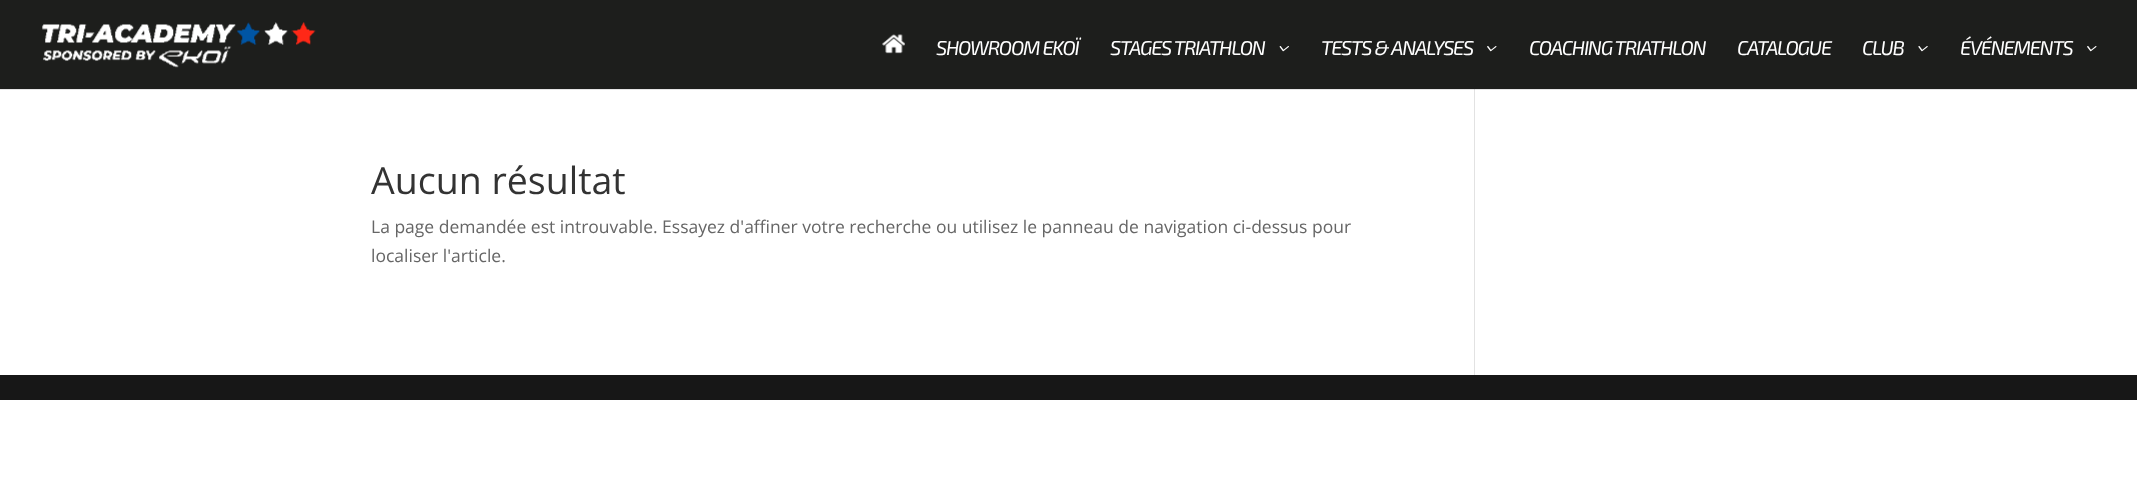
<!DOCTYPE html>
<meta charset="utf-8">
<style>body { margin: 0 } canvas { display: block }</style>
<canvas id="canvas" width="2137" height="480"></canvas>
<script type="module">
  const canvas = document.getElementById("canvas");
  const g = canvas.getContext("2d");
  g.miterLimit = 4;
  g.fontKerning = "normal";
  function drawText(s, x, y, [font, color]) {
    g.font = font;
    g.fillStyle = color;
    g.fillText(s, x, y);
  }
  function fillBox(x, y, w, h, color) {
    g.fillStyle = color;
    g.fillRect(x, y, w, h);
  }
  async function drawPicture(src, x, y, w, h) {
    const img = new Image();
    img.src = src;
    await img.decode();
    g.drawImage(img, x, y, w, h);
  }

  const s1 = ["italic 20px 'Exo 2'", "#FFFFFF"];
  const s2 = ["37.5px Open Sans", "#333333"];
  const s3 = ["17.5px Open Sans", "#666666"];

  fillBox(0, 0, 2137, 480, "#FFFFFF");
  fillBox(1474, 89, 1, 286, "#E2E2E2");
  g.fillStyle = "rgba(0, 0, 0, 0.1)";
  g.beginPath();
  g.moveTo(0, 89);
  g.lineTo(0, 90);
  g.lineTo(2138, 90);
  g.lineTo(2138, 1);
  g.lineTo(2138, 89);
  g.closePath();
  g.fill();
  fillBox(0, 0, 2137, 89, "#1D1E1C");
  await drawPicture("pic1.png", 42, 22, 274, 46);
  await drawPicture("pic2.png", 882, 34, 23, 20);
  g.letterSpacing = "-1.25px";
  drawText("SHOWROOM EKOÏ", 936, 55, s1);
  drawText("STAGES TRIATHLON", 1110, 55, s1);
  await drawPicture("pic3.png", 1279, 46, 10, 6);
  drawText("TESTS & ANALYSES", 1321, 55, s1);
  await drawPicture("pic4.png", 1487, 46, 10, 6);
  drawText("COACHING TRIATHLON", 1529, 55, s1);
  drawText("CATALOGUE", 1737, 55, s1);
  drawText("CLUB", 1862, 55, s1);
  await drawPicture("pic5.png", 1918, 46, 10, 6);
  drawText("ÉVÉNEMENTS", 1960, 55, s1);
  await drawPicture("pic4.png", 2087, 46, 10, 6);
  g.letterSpacing = "0px";
  drawText("Aucun résultat", 371, 194, s2);
  drawText("La page demandée est introuvable. Essayez d'affiner votre recherche ou utilisez le panneau de navigation ci-dessus pour", 371, 233, s3);
  drawText("localiser l'article.", 371, 262, s3);
  fillBox(0, 375, 2137, 25, "#171717");
</script>
